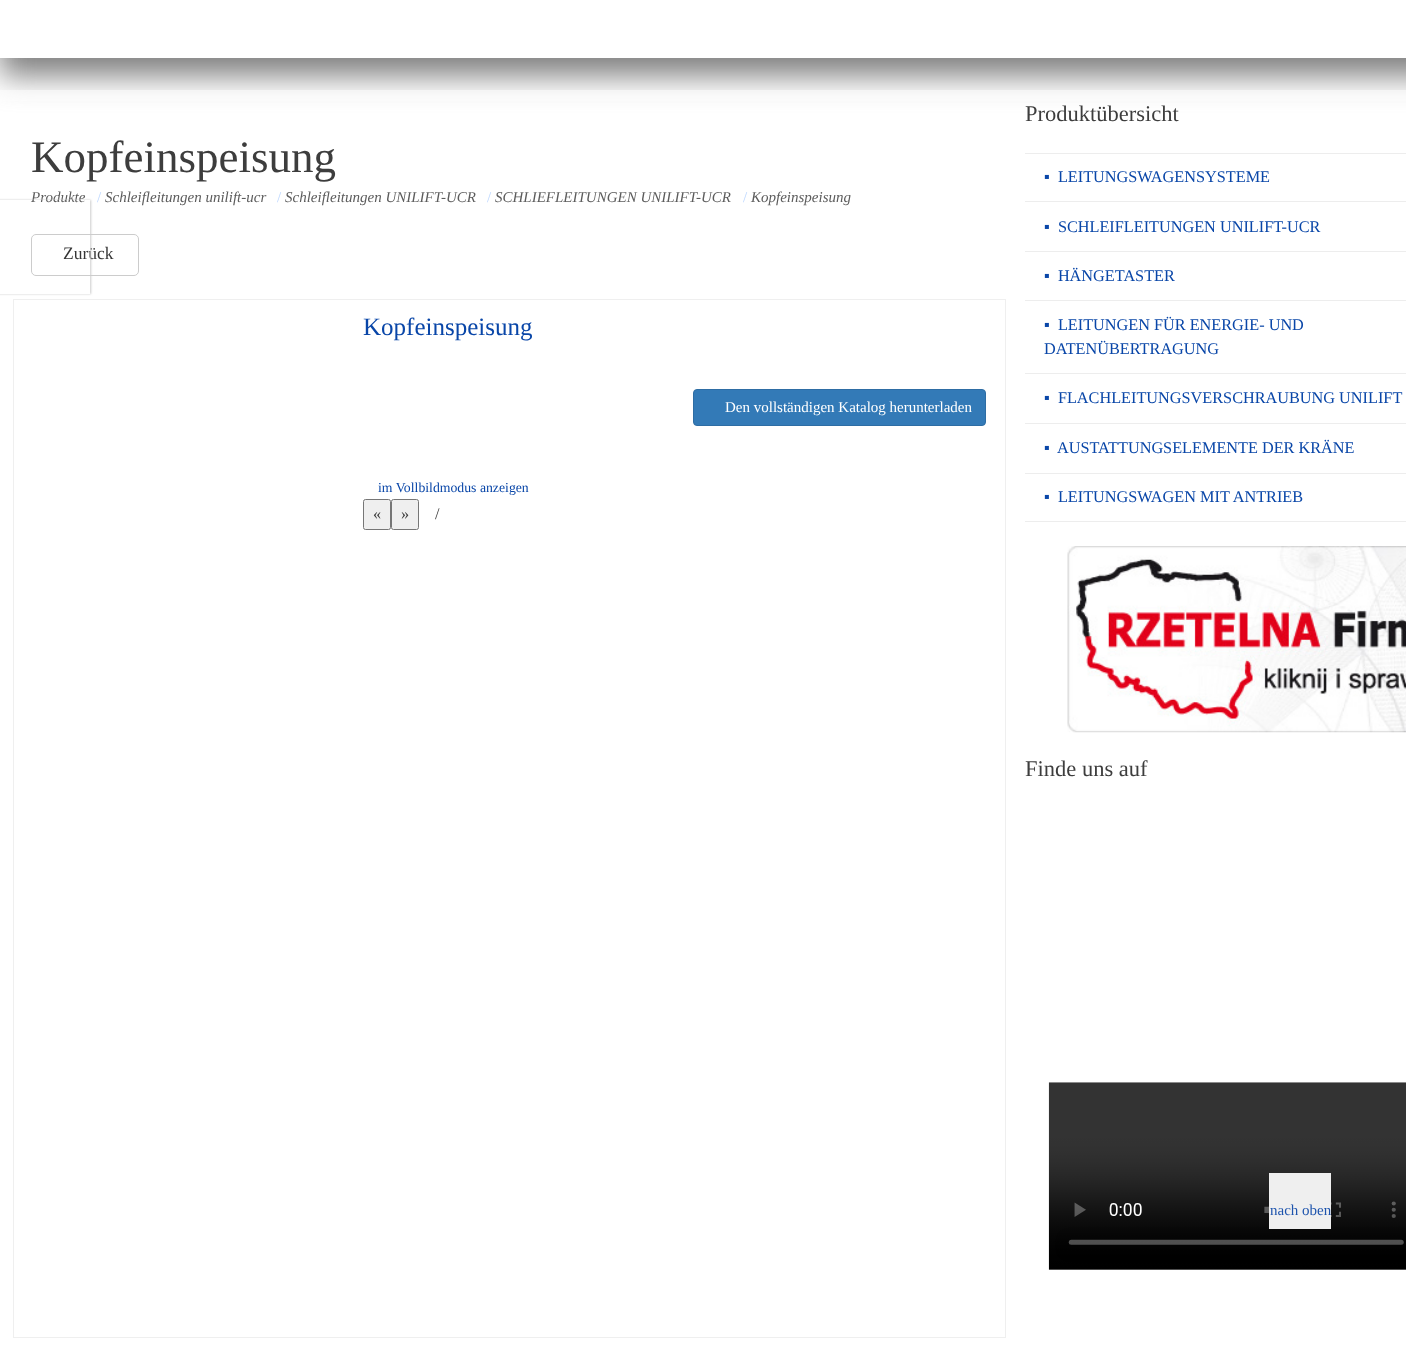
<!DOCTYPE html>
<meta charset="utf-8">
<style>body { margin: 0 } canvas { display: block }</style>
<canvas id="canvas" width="1406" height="1353"></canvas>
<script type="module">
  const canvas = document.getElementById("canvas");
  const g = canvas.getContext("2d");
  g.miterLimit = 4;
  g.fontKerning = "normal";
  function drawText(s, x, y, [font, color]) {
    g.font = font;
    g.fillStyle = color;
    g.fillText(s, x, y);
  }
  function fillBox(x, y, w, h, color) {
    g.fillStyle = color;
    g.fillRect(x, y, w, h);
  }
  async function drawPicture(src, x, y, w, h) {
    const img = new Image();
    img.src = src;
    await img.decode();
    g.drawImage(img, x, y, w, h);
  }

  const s1 = ["45px Liberation Serif", "#3D3D3D"];
  const s2 = ["italic 15px Liberation Serif", "#5C5C5C"];
  const s3 = ["15px Liberation Serif", "#BDD7FF"];
  const s4 = ["17.5px Liberation Serif", "#353535"];
  const s5 = ["25px Liberation Serif", "#0946A8"];
  const s6 = ["15px Liberation Serif", "#FFFFFF"];
  const s7 = ["13.75px Liberation Serif", "#0946A8"];
  const s8 = ["16.25px Liberation Serif", "#3D3D3D"];
  const s9 = ["22.5px Liberation Serif", "#3D3D3D"];
  const s10 = ["16.25px Liberation Serif", "#0946A8"];
  const s11 = ["15px Liberation Serif", "#1E54AD"];

  fillBox(0, 0, 1406, 1353, "#FFFFFF");
  g.save();
  g.beginPath();
  g.moveTo(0, 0);
  g.lineTo(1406, 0);
  g.lineTo(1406, 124);
  g.lineTo(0, 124);
  g.closePath();
  g.moveTo(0, -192);
  g.lineTo(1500, -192);
  g.lineTo(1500, 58);
  g.lineTo(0, 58);
  g.closePath();
  g.clip("evenodd");
  g.fillStyle = "#7F7F7F";
  g.filter = "blur(15.5px)";
  g.beginPath();
  g.rect(0, -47, 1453, 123);
  g.fill();
  g.filter = "none";
  g.restore();
  fillBox(0, 90, 1406, 11, "rgba(253, 253, 253, 0.55)");
  drawText("Kopfeinspeisung", 31, 172, s1);
  drawText("Produkte", 31, 202, s2);
  drawText("/", 97, 202, s3);
  drawText("Schleifleitungen unilift-ucr", 105, 202, s2);
  drawText("/", 277, 202, s3);
  drawText("Schleifleitungen UNILIFT-UCR", 285, 202, s2);
  drawText("/", 487, 202, s3);
  drawText("SCHLIEFLEITUNGEN UNILIFT-UCR", 495, 202, s2);
  drawText("/", 743, 202, s3);
  drawText("Kopfeinspeisung", 751, 202, s2);
  g.beginPath();
  g.roundRect(31.5, 234.5, 107, 41, 4.5);
  g.strokeStyle = "#CCCCCC";
  g.stroke();
  drawText("Zurück", 63, 259, s4);
  g.strokeStyle = "#EFEFEF";
  g.strokeRect(13.5, 299.5, 992, 1038);
  drawText("Kopfeinspeisung", 363, 335, s5);
  g.fillStyle = "#337AB7";
  g.beginPath();
  g.roundRect(693.5, 389.5, 292, 36, 3.5);
  g.fill();
  g.strokeStyle = "#2E6DA4";
  g.stroke();
  drawText("Den vollständigen Katalog herunterladen", 725, 412, s6);
  drawText("im Vollbildmodus anzeigen", 378, 492, s7);
  g.fillStyle = "#EFEFEF";
  g.beginPath();
  g.roundRect(363.5, 499.5, 27, 30, 2);
  g.fill();
  g.strokeStyle = "#767676";
  g.stroke();
  drawText("«", 373, 519, s8);
  g.fillStyle = "#EFEFEF";
  g.beginPath();
  g.roundRect(391.5, 499.5, 27, 30, 2);
  g.fill();
  g.stroke();
  drawText("»", 401, 519, s8);
  drawText("/", 435, 519, s8);
  drawText("Produktübersicht", 1025, 121, s9);
  fillBox(1025, 153, 381, 1, "#EDEDED");
  drawText("▪  LEITUNGSWAGENSYSTEME", 1044, 182, s10);
  fillBox(1025, 201, 381, 1, "#EDEDED");
  drawText("▪  SCHLEIFLEITUNGEN UNILIFT-UCR", 1044, 232, s10);
  fillBox(1025, 251, 381, 1, "#EDEDED");
  drawText("▪  HÄNGETASTER", 1044, 281, s10);
  fillBox(1025, 300, 381, 1, "#EDEDED");
  drawText("▪  LEITUNGEN FÜR ENERGIE- UND", 1044, 330, s10);
  drawText("DATENÜBERTRAGUNG", 1044, 354, s10);
  fillBox(1025, 373, 381, 1, "#EDEDED");
  drawText("▪  FLACHLEITUNGSVERSCHRAUBUNG UNILIFT", 1044, 403, s10);
  fillBox(1025, 423, 381, 1, "#EDEDED");
  drawText("▪  AUSTATTUNGSELEMENTE DER KRӒNE", 1044, 453, s10);
  fillBox(1025, 473, 381, 1, "#EDEDED");
  fillBox(1025, 521, 381, 1, "#EDEDED");
  drawText("▪  LEITUNGSWAGEN MIT ANTRIEB", 1044, 502, s10);
  await drawPicture("pic1.png", 1067, 546, 339, 187);
  drawText("Finde uns auf", 1025, 776, s9);
  await drawPicture("pic2.png", 1048, 1082, 358, 188);
  g.save();
  g.beginPath();
  g.moveTo(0, 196);
  g.lineTo(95, 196);
  g.lineTo(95, 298);
  g.lineTo(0, 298);
  g.closePath();
  g.moveTo(-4, 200);
  g.lineTo(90, 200);
  g.lineTo(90, 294);
  g.lineTo(-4, 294);
  g.closePath();
  g.clip("evenodd");
  g.fillStyle = "#CCCCCC";
  g.filter = "blur(1px)";
  g.beginPath();
  g.rect(-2, 200, 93, 94);
  g.fill();
  g.filter = "none";
  g.restore();
  fillBox(1269, 1173, 62, 56, "#EFEFEF");
  drawText("nach oben", 1270, 1215, s11);
</script>
